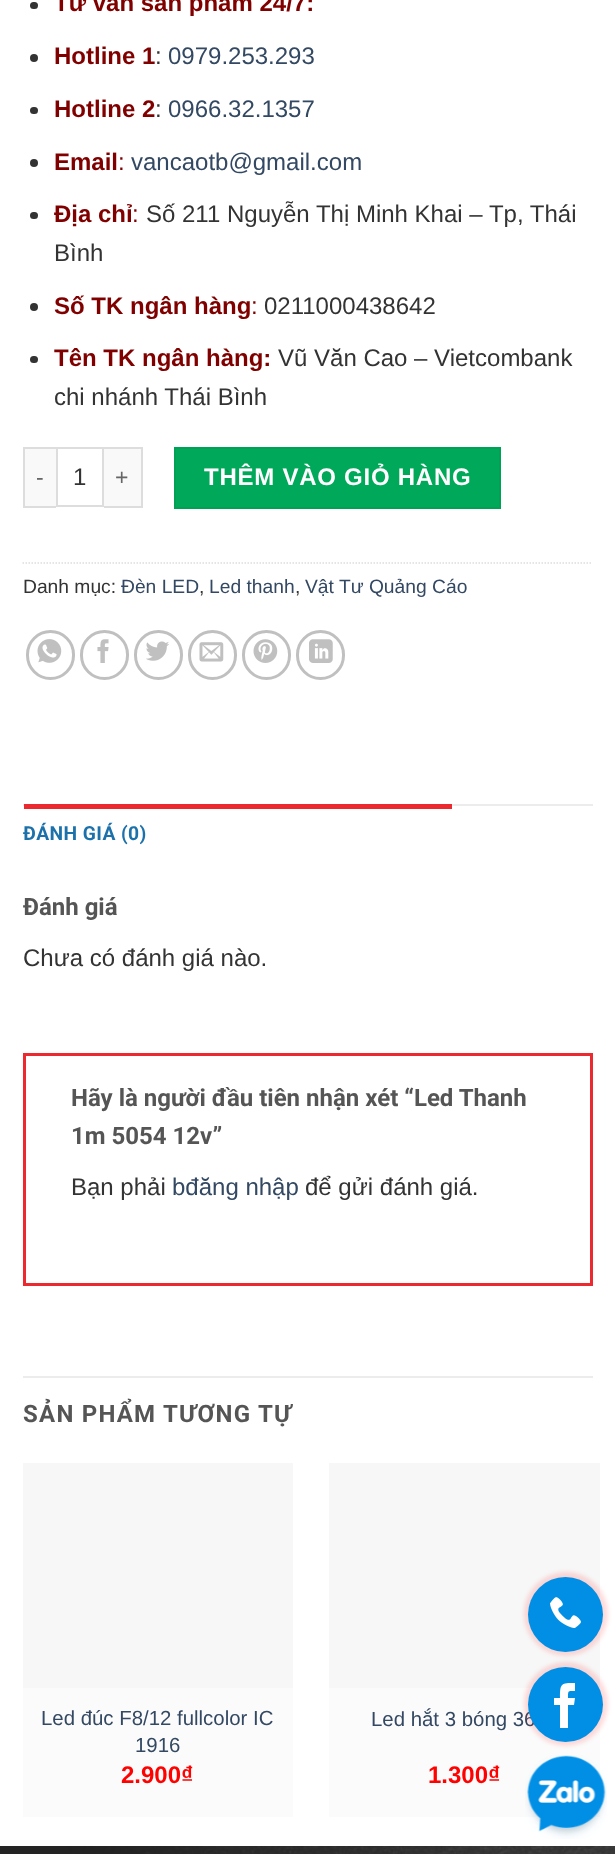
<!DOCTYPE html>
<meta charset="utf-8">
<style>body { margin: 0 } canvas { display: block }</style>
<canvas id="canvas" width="615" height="1854"></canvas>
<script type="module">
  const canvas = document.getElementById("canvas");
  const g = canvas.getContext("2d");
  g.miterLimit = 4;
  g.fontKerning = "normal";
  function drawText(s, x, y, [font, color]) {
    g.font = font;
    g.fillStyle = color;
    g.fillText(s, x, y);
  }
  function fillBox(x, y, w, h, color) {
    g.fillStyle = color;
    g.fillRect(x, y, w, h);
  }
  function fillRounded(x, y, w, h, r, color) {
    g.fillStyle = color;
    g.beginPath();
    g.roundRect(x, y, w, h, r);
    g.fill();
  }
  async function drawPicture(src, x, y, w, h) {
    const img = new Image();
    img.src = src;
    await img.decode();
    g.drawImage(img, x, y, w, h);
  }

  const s1 = ["bold 24px Liberation Sans", "#800000"];
  const s2 = ["24px Liberation Sans", "#333333"];
  const s3 = ["24px Liberation Sans", "#334862"];
  const s4 = ["24px Liberation Sans", "#800000"];
  const s5 = ["23px Liberation Sans", "#666666"];
  const s6 = ["bold 24px Liberation Sans", "#FFFFFF"];
  const s7 = ["19.25px Liberation Sans", "#333333"];
  const s8 = ["19.25px Liberation Sans", "#334862"];
  const s9 = ["bold 19.25px Roboto", "#1D71AB"];
  const s10 = ["bold 24px Roboto", "#555555"];
  const s11 = ["20.4px Liberation Sans", "#334862"];
  const s12 = ["bold 24px Liberation Sans", "#FF0200"];

  fillBox(0, 0, 615, 1854, "#FFFFFF");
  fillRounded(30, 2, 8, 7, 3.5, "#333333");
  drawText("Tư vấn sản phẩm 24/7:", 54, 11, s1);
  g.fillStyle = "#333333";
  g.beginPath();
  g.arc(34, 58, 4, 0, Math.PI * 2);
  g.fill();
  drawText("Hotline 1", 54, 64, s1);
  drawText(":", 155, 64, s2);
  drawText("0979.253.293", 168, 64, s3);
  fillRounded(30, 107, 8, 7, 3.5, "#333333");
  drawText("Hotline 2", 54, 117, s1);
  drawText(":", 155, 117, s2);
  drawText("0966.32.1357", 168, 117, s3);
  g.fillStyle = "#333333";
  g.beginPath();
  g.arc(34, 163, 4, 0, Math.PI * 2);
  g.fill();
  drawText("Email", 54, 170, s1);
  drawText(":", 118, 170, s4);
  drawText("vancaotb@gmail.com", 131, 170, s3);
  fillRounded(30, 212, 8, 7, 3.5, "#333333");
  drawText("Địa chỉ", 54, 222, s1);
  drawText(":", 132, 222, s4);
  drawText("Số 211 Nguyễn Thị Minh Khai – Tp, Thái", 146, 222, s2);
  drawText("Bình", 54, 261, s2);
  g.beginPath();
  g.arc(34, 307, 4, 0, Math.PI * 2);
  g.fill();
  drawText("Số TK ngân hàng", 54, 314, s1);
  drawText(":", 251, 314, s4);
  drawText("0211000438642", 264, 314, s2);
  fillRounded(30, 356, 8, 7, 3.5, "#333333");
  drawText("Tên TK ngân hàng:", 54, 366, s1);
  drawText("Vũ Văn Cao – Vietcombank", 278, 366, s2);
  drawText("chi nhánh Thái Bình", 54, 405, s2);
  fillBox(25, 449, 31, 57, "#F9F9F9");
  fillBox(23, 447, 33, 2, "#DDDDDD");
  fillBox(23, 506, 33, 2, "#DDDDDD");
  fillBox(23, 447, 2, 60, "#DDDDDD");
  g.letterSpacing = "1px";
  drawText("-", 36, 485, s5);
  g.strokeStyle = "#DDDDDD";
  g.lineWidth = 2;
  g.strokeRect(57, 448, 46, 58);
  g.letterSpacing = "0px";
  drawText("1", 73, 485, s2);
  fillBox(104, 449, 37, 57, "#F9F9F9");
  fillBox(104, 447, 39, 2, "#DDDDDD");
  fillBox(141, 447, 2, 60, "#DDDDDD");
  fillBox(104, 506, 39, 2, "#DDDDDD");
  g.letterSpacing = "1px";
  drawText("+", 115, 485, s5);
  g.fillStyle = "#00A859";
  g.beginPath();
  g.rect(175, 448, 325, 60);
  g.fill();
  g.strokeStyle = "#00A055";
  g.stroke();
  g.letterSpacing = "0.75px";
  drawText("THÊM VÀO GIỎ HÀNG", 204, 485, s6);
  g.beginPath();
  g.moveTo(22.5, 563);
  g.lineTo(592.5, 563);
  g.strokeStyle = "#DDDDDD";
  g.lineWidth = 1.5;
  g.setLineDash([1.5, 1.5]);
  g.stroke();
  g.letterSpacing = "0px";
  drawText("Danh mục:", 23, 593, s7);
  drawText("Đèn LED", 121, 593, s8);
  drawText(",", 199, 593, s7);
  drawText("Led thanh", 209, 593, s8);
  drawText(",", 295, 593, s7);
  drawText("Vật Tư Quảng Cáo", 305, 593, s8);
  g.beginPath();
  g.roundRect(27.5, 631.5, 46, 47, 23);
  g.strokeStyle = "#C0C0C0";
  g.lineWidth = 3;
  g.setLineDash([]);
  g.stroke();
  await drawPicture("pic1.png", 37, 639, 25, 24);
  g.beginPath();
  g.roundRect(81.5, 631.5, 46, 47, 23);
  g.stroke();
  await drawPicture("pic2.png", 97, 639, 12, 24);
  g.beginPath();
  g.roundRect(135.5, 631.5, 46, 47, 23);
  g.stroke();
  await drawPicture("pic3.png", 146, 641, 23, 20);
  g.beginPath();
  g.roundRect(189.5, 631.5, 46, 47, 23);
  g.stroke();
  await drawPicture("pic4.png", 199, 642, 25, 20);
  g.beginPath();
  g.roundRect(243.5, 631.5, 46, 47, 23);
  g.stroke();
  await drawPicture("pic5.png", 253, 639, 25, 24);
  g.beginPath();
  g.roundRect(297.5, 631.5, 46, 47, 23);
  g.stroke();
  await drawPicture("pic6.png", 309, 639, 24, 24);
  fillBox(23, 804, 570, 2, "#ECECEC");
  fillBox(24, 804, 428, 5, "#EC292E");
  g.letterSpacing = "0.4px";
  drawText("ĐÁNH GIÁ (0)", 23, 840, s9);
  g.letterSpacing = "0px";
  drawText("Đánh giá", 23, 915, s10);
  drawText("Chưa có đánh giá nào.", 23, 966, s2);
  g.strokeStyle = "#EC292E";
  g.strokeRect(24.5, 1054.5, 567, 230);
  drawText("Hãy là người đầu tiên nhận xét “Led Thanh", 71, 1106, s10);
  drawText("1m 5054 12v”", 71, 1144, s10);
  drawText("Bạn phải", 71, 1195, s2);
  drawText("bđăng nhập", 172, 1195, s3);
  drawText("để gửi đánh giá.", 305, 1195, s2);
  fillBox(23, 1376, 570, 2, "#ECECEC");
  g.letterSpacing = "1.25px";
  drawText("SẢN PHẨM TƯƠNG TỰ", 23, 1422, s10);
  fillBox(23, 1463, 270, 225, "#F7F7F7");
  fillBox(23, 1688, 270, 129, "#FBFBFB");
  g.letterSpacing = "0px";
  drawText("Led đúc F8/12 fullcolor IC", 41, 1725, s11);
  drawText("1916", 135, 1752, s11);
  drawText("2.900₫", 121, 1783, s12);
  fillBox(329, 1463, 271, 225, "#F7F7F7");
  fillBox(329, 1688, 271, 129, "#FBFBFB");
  drawText("Led hắt 3 bóng 36", 371, 1726, s11);
  drawText("1.300₫", 428, 1783, s12);
  await drawPicture("pic7.png", 0, 1846, 615, 8);
  g.fillStyle = "rgba(255, 0, 0, 0.14)";
  g.filter = "blur(2px)";
  g.beginPath();
  g.roundRect(524, 1572, 84, 84, 42);
  g.fill();
  g.filter = "none";
  g.fillStyle = "#008FE5";
  g.beginPath();
  g.arc(565.5, 1614.5, 37.5, 0, Math.PI * 2);
  g.fill();
  await drawPicture("pic8.png", 550, 1597, 31, 31);
  g.fillStyle = "rgba(255, 0, 0, 0.14)";
  g.filter = "blur(2px)";
  g.beginPath();
  g.roundRect(524, 1662, 84, 84, 42);
  g.fill();
  g.filter = "none";
  g.fillStyle = "#008FE5";
  g.beginPath();
  g.arc(565.5, 1704.5, 37.5, 0, Math.PI * 2);
  g.fill();
  g.fillStyle = "#FFFFFF";
  g.beginPath();
  g.moveTo(568, 1728);
  g.lineTo(560, 1728);
  g.lineTo(560, 1705);
  g.lineTo(554, 1705);
  g.lineTo(554, 1698);
  g.lineTo(560, 1698);
  g.bezierCurveTo(560, 1683, 561, 1683, 575, 1683);
  g.lineTo(575, 1691);
  g.bezierCurveTo(568, 1691, 568, 1690, 568, 1698);
  g.lineTo(575, 1698);
  g.lineTo(574, 1705);
  g.lineTo(568, 1705);
  g.closePath();
  g.fill();
  await drawPicture("pic9.png", 525, 1755, 82, 84);
</script>
